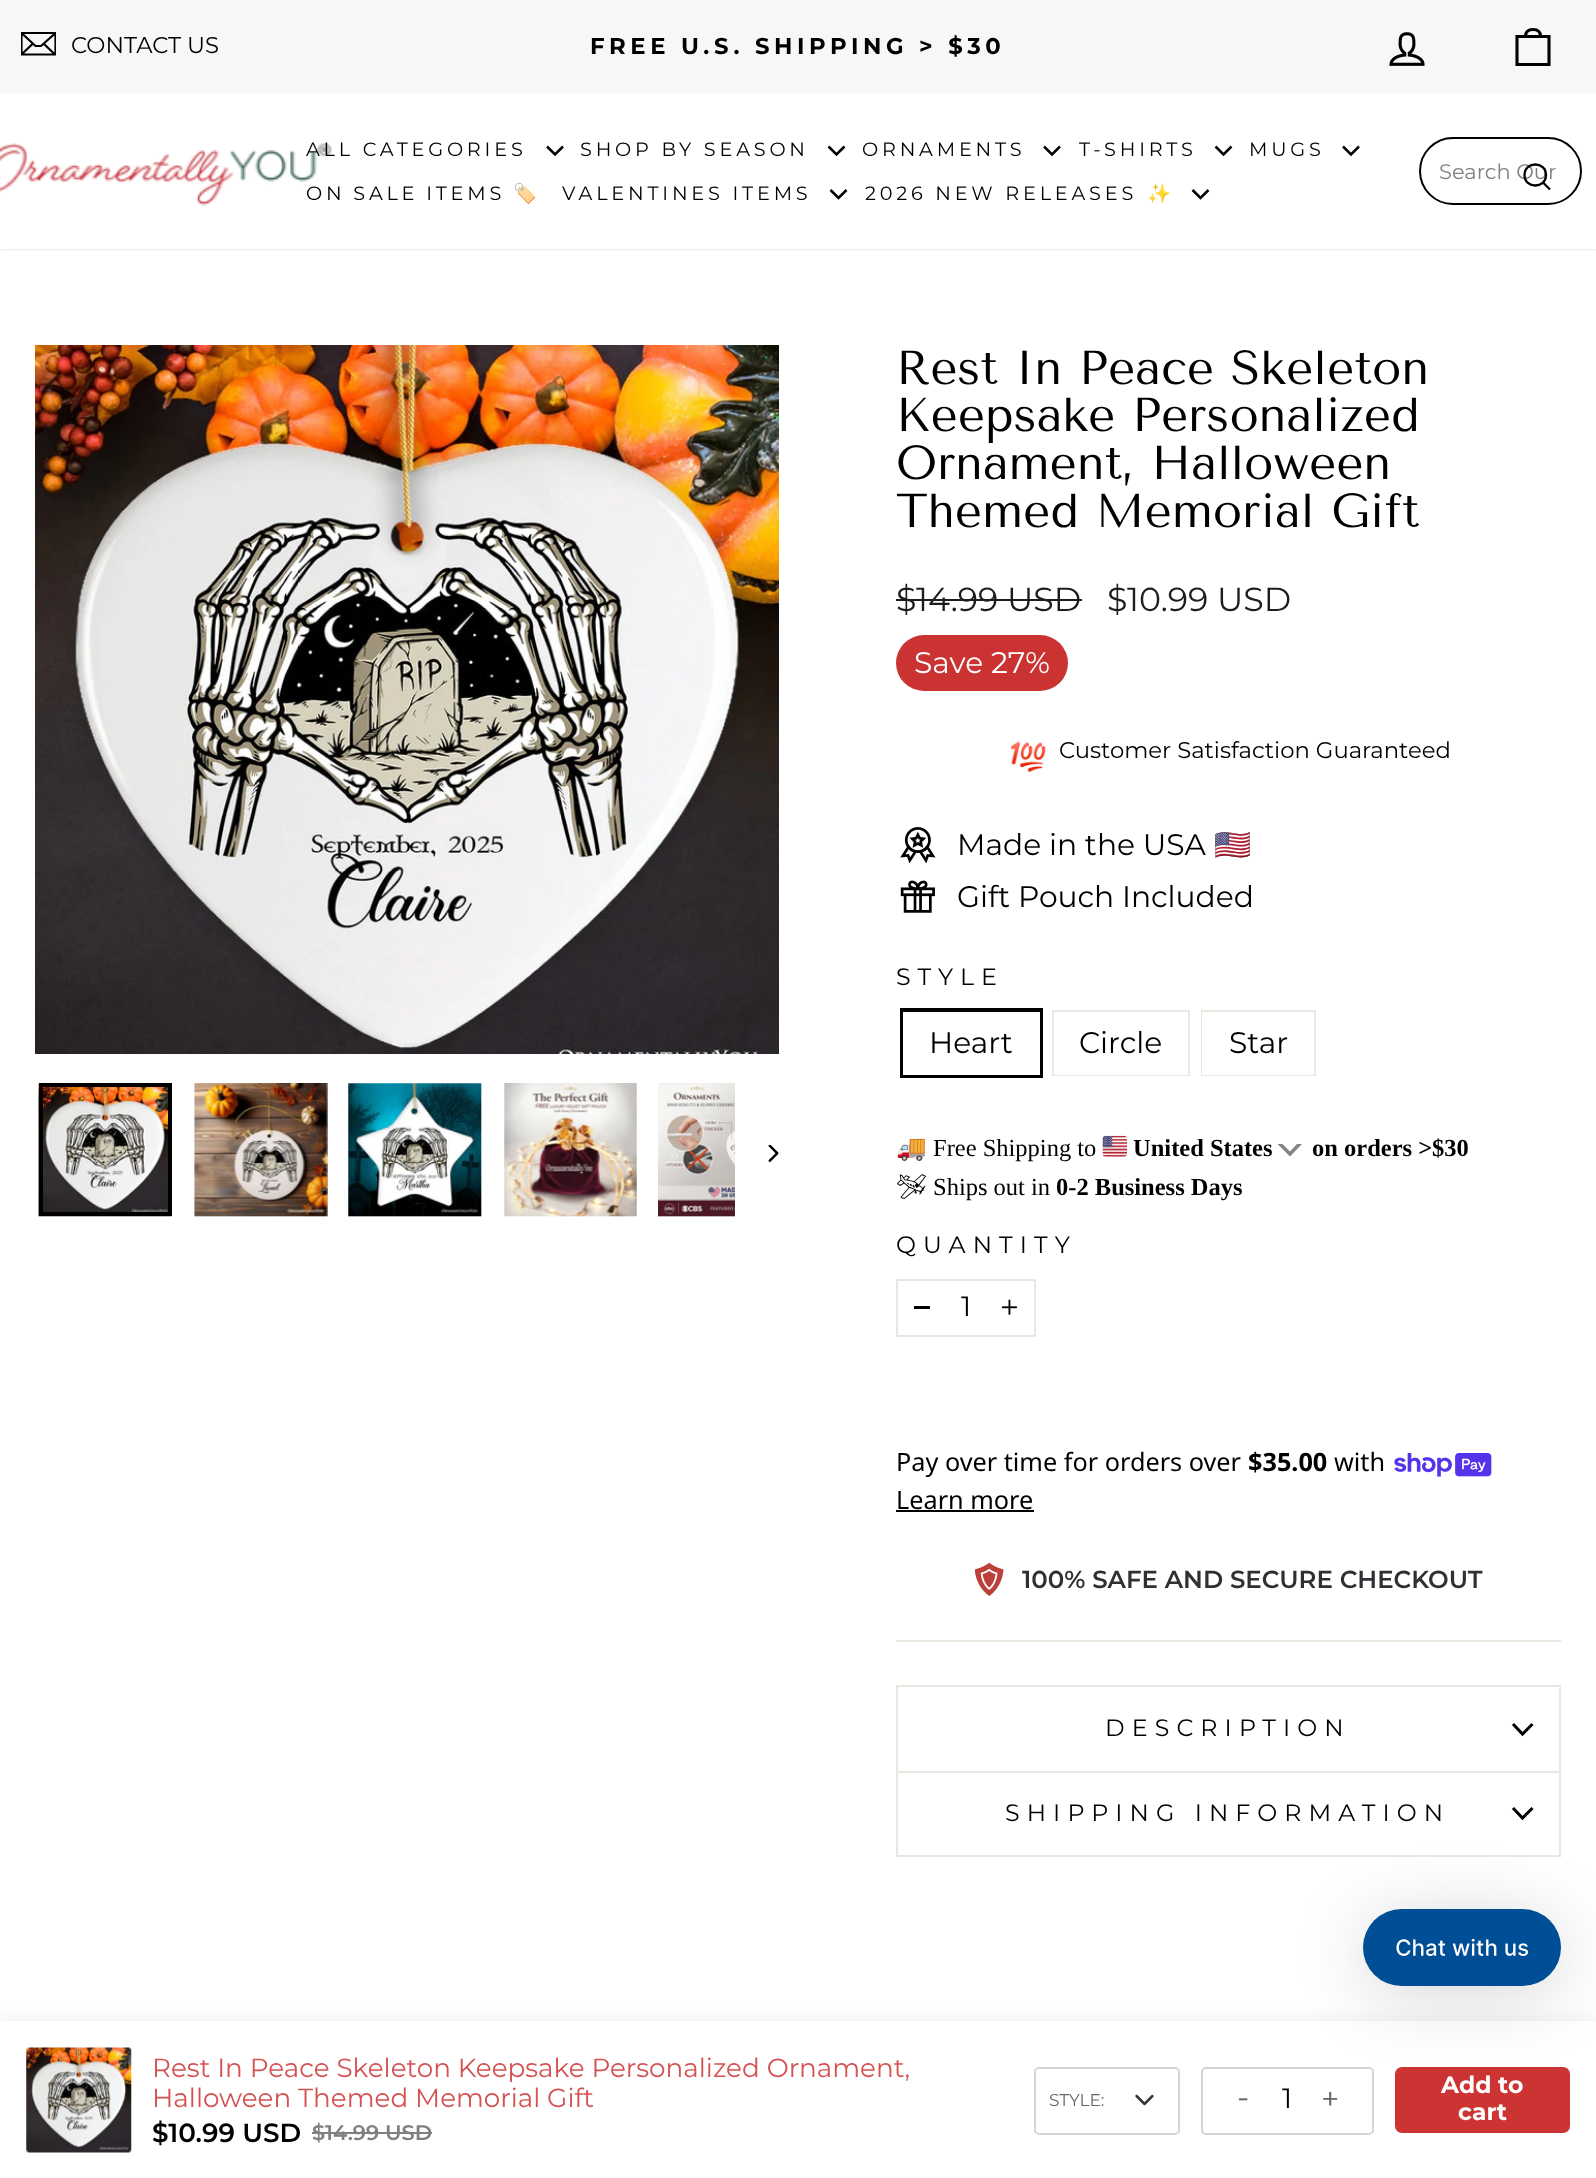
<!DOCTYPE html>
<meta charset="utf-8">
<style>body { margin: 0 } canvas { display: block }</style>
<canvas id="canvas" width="1596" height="2178"></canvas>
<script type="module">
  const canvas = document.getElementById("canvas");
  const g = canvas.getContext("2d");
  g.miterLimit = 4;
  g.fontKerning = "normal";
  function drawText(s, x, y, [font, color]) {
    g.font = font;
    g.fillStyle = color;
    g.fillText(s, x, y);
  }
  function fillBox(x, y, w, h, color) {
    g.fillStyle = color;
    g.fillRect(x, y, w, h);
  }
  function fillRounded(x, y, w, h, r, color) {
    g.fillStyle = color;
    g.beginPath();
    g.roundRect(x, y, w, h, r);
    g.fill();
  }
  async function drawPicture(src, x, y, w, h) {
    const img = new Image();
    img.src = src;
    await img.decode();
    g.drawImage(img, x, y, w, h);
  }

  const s1 = ["22.75px Montserrat", "#000000"];
  const s2 = ["bold 22.75px Montserrat", "#000000"];
  const s3 = ["19.25px Montserrat", "#000000"];
  const s4 = ["19.25px Noto Color Emoji", "#000000"];
  const s5 = ["21px Montserrat", "#808080"];
  const s6 = ["47.6px Tenor Sans", "#000000"];
  const s7 = ["33.25px Montserrat", "#1C1D1D"];
  const s8 = ["29.75px Montserrat", "#FFFFFF"];
  const s9 = ["29.75px Montserrat", "#000000"];
  const s10 = ["29.75px Noto Color Emoji", "#000000"];
  const s11 = ["23.75px Montserrat", "#000000"];
  const s12 = ["24.5px Noto Color Emoji", "#000000"];
  const s13 = ["24.5px Liberation Serif", "#000000"];
  const s14 = ["bold 24.5px Liberation Serif", "#000000"];
  const s15 = ["24.5px Noto Emoji", "#000000"];
  const s16 = ["28px Montserrat", "#000000"];
  const s17 = ["25.25px Noto Sans", "#000000"];
  const s18 = ["bold 25.25px Noto Sans", "#000000"];
  const s19 = ["600 24.5px Montserrat", "#2F3033"];
  const s20 = ["26.25px Montserrat", "#D45252"];
  const s21 = ["600 26.25px Montserrat", "#000000"];
  const s22 = ["600 21px Montserrat", "#808080"];
  const s23 = ["17px Montserrat", "#666666"];
  const s24 = ["32px Montserrat", "#666666"];
  const s25 = ["bold 23.5px Montserrat", "#FFFFFF"];

  fillBox(0, 0, 1596, 2178, "#FFFFFF");
  g.fillStyle = "rgba(0, 0, 0, 0.2)";
  g.filter = "blur(1px)";
  g.beginPath();
  g.rect(0, 93, 1596, 156);
  g.fill();
  g.filter = "none";
  fillBox(0, 0, 1596, 93, "#F7F7F7");
  g.save();
  g.beginPath();
  g.rect(21, 26, 35, 35);
  g.clip();
  g.beginPath();
  g.moveTo(55.5, 54.5);
  g.lineTo(21.5, 54.5);
  g.lineTo(21.5, 33);
  g.lineTo(55.5, 33);
  g.closePath();
  g.moveTo(21.5, 33);
  g.lineTo(35.5, 46);
  g.lineTo(41, 46);
  g.lineTo(55.5, 33);
  g.moveTo(33, 43.5);
  g.lineTo(22, 54);
  g.moveTo(55, 54.5);
  g.lineTo(43.5, 43.5);
  g.strokeStyle = "#000000";
  g.lineWidth = 2.2;
  g.stroke();
  g.restore();
  drawText("CONTACT US", 71, 53, s1);
  g.letterSpacing = "4.55px";
  drawText("FREE U.S. SHIPPING > $30", 590, 54, s2);
  await drawPicture("pic1.png", 1389, 32, 36, 34);
  g.beginPath();
  g.moveTo(1517, 36.5);
  g.lineTo(1549, 36.5);
  g.lineTo(1549, 64.5);
  g.lineTo(1517, 64.5);
  g.closePath();
  g.moveTo(1525.5, 36.5);
  g.bezierCurveTo(1525.5, 31, 1529, 29.5, 1533, 29.5);
  g.bezierCurveTo(1537, 29.5, 1540.5, 31, 1540.5, 36.5);
  g.strokeStyle = "#000000";
  g.lineWidth = 3.1;
  g.stroke();
  fillBox(0, 93, 1596, 156, "#FFFFFF");
  g.letterSpacing = "3.8px";
  drawText("ALL CATEGORIES", 306, 156, s3);
  g.wordSpacing = "-1px";
  drawText("ON SALE ITEMS", 306, 200, s3);
  await drawPicture("pic2.png", 0, 143, 332, 63);
  g.beginPath();
  g.moveTo(547, 146.5);
  g.lineTo(555, 154.5);
  g.lineTo(563, 146.5);
  g.lineWidth = 2.5;
  g.stroke();
  g.wordSpacing = "0px";
  drawText("SHOP BY SEASON", 580, 156, s3);
  g.beginPath();
  g.moveTo(828.5, 146.5);
  g.lineTo(836.5, 154.5);
  g.lineTo(844.5, 146.5);
  g.stroke();
  drawText("ORNAMENTS", 862, 156, s3);
  g.beginPath();
  g.moveTo(1044, 146.5);
  g.lineTo(1052, 154.5);
  g.lineTo(1060, 146.5);
  g.stroke();
  drawText("T-SHIRTS", 1079, 156, s3);
  g.beginPath();
  g.moveTo(1215.5, 146.5);
  g.lineTo(1223.5, 154.5);
  g.lineTo(1231.5, 146.5);
  g.stroke();
  drawText("MUGS", 1249, 156, s3);
  g.beginPath();
  g.moveTo(1343, 146.5);
  g.lineTo(1351, 154.5);
  g.lineTo(1359, 146.5);
  g.stroke();
  drawText("🏷️", 513, 200, s4);
  drawText("VALENTINES ITEMS", 562, 200, s3);
  g.beginPath();
  g.moveTo(830.5, 190);
  g.lineTo(838.5, 198);
  g.lineTo(846.5, 190);
  g.stroke();
  drawText("2026 NEW RELEASES", 865, 200, s3);
  drawText("✨", 1147, 200, s4);
  g.beginPath();
  g.moveTo(1192.5, 190);
  g.lineTo(1200.5, 198);
  g.lineTo(1208.5, 190);
  g.stroke();
  g.beginPath();
  g.roundRect(1420, 138, 161, 66, 33);
  g.lineWidth = 2;
  g.stroke();
  g.letterSpacing = "0px";
  drawText("Search Our", 1439, 179, s5);
  g.beginPath();
  g.moveTo(1546, 175);
  g.bezierCurveTo(1546, 189, 1524.5, 189, 1524.5, 175);
  g.bezierCurveTo(1524.5, 161, 1546, 161, 1546, 175);
  g.closePath();
  g.moveTo(1550, 189.5);
  g.lineTo(1543, 182.5);
  g.lineWidth = 2.3;
  g.stroke();
  await drawPicture("pic3.png", 35, 345, 744, 709);
  await drawPicture("pic4.png", 38, 1083, 134, 134);
  g.lineWidth = 4;
  g.strokeRect(41, 1085, 129, 129);
  await drawPicture("pic5.png", 194, 1083, 134, 134);
  await drawPicture("pic6.png", 348, 1083, 134, 134);
  await drawPicture("pic7.png", 504, 1083, 133, 134);
  await drawPicture("pic8.png", 658, 1083, 77, 134);
  await drawPicture("pic9.png", 768, 1145, 11, 17);
  drawText("Rest In Peace Skeleton", 896, 384, s6);
  drawText("Keepsake Personalized", 896, 431, s6);
  drawText("Ornament, Halloween", 896, 479, s6);
  drawText("Themed Memorial Gift", 896, 527, s6);
  drawText("$14.99 USD", 896, 611, s7);
  fillBox(896, 599, 186, 2, "#1C1D1D");
  drawText("$10.99 USD", 1107, 611, s7);
  fillRounded(896, 635, 172, 56, 28, "#CB3232");
  drawText("Save 27%", 914, 673, s8);
  await drawPicture("pic10.png", 1010, 741, 36, 32);
  drawText("Customer Satisfaction Guaranteed", 1059, 758, s1);
  await drawPicture("pic11.png", 900, 827, 36, 37);
  drawText("Made in the USA", 957, 855, s9);
  drawText("🇺🇸", 1214, 855, s10);
  await drawPicture("pic12.png", 900, 880, 35, 33);
  drawText("Gift Pouch Included", 957, 907, s9);
  g.letterSpacing = "7.1px";
  drawText("STYLE", 896, 985, s11);
  g.strokeRect(902, 1010, 139, 66);
  fillBox(903, 1012, 137, 63, "#FFFFFF");
  g.letterSpacing = "0px";
  drawText("Heart", 929, 1053, s9);
  g.strokeStyle = "#E8E8E1";
  g.lineWidth = 2;
  g.strokeRect(1053, 1011, 136, 64);
  fillBox(1054, 1074, 134, 1, "#FFFFFF");
  drawText("Circle", 1079, 1053, s9);
  g.strokeRect(1202, 1011, 113, 64);
  fillBox(1202, 1012, 112, 63, "#FFFFFF");
  drawText("Star", 1229, 1053, s9);
  drawText("🚚", 896, 1156, s12);
  drawText("Free Shipping to", 933, 1156, s13);
  await drawPicture("pic13.png", 1102, 1135, 25, 22);
  drawText("United States", 1133, 1156, s14);
  g.fillStyle = "#858585";
  g.beginPath();
  g.moveTo(1302, 1144);
  g.lineTo(1290, 1156.5);
  g.lineTo(1290, 1151.5);
  g.lineTo(1297, 1144);
  g.closePath();
  g.moveTo(1290, 1156.5);
  g.lineTo(1277.5, 1144);
  g.lineTo(1282.5, 1144);
  g.lineTo(1290, 1151.5);
  g.closePath();
  g.fill();
  drawText("on orders >$30", 1312, 1156, s14);
  drawText("🛩", 896, 1195, s15);
  drawText("Ships out in", 933, 1195, s13);
  drawText("0-2 Business Days", 1056, 1195, s14);
  g.letterSpacing = "7.1px";
  drawText("QUANTITY", 896, 1253, s11);
  g.strokeRect(897, 1280, 138, 56);
  fillBox(914, 1306, 16, 3, "#000000");
  g.letterSpacing = "0px";
  drawText("1", 961, 1316, s16);
  await drawPicture("pic14.png", 1001, 1299, 17, 16);
  drawText("Pay over time for orders over", 896, 1471, s17);
  drawText("$35.00", 1248, 1471, s18);
  drawText("with", 1334, 1471, s17);
  await drawPicture("pic15.png", 1394, 1453, 98, 24);
  drawText("Learn more", 896, 1509, s17);
  fillBox(896, 1510, 138, 2, "#000000");
  await drawPicture("pic16.png", 975, 1563, 29, 33);
  drawText("100% SAFE AND SECURE CHECKOUT", 1022, 1588, s19);
  fillBox(896, 1640, 665, 2, "#E8E8E1");
  fillBox(896, 1771, 665, 2, "#E8E8E1");
  fillBox(896, 1685, 665, 2, "#E8E8E1");
  fillBox(1559, 1685, 2, 86, "#E8E8E1");
  fillBox(896, 1685, 2, 86, "#E8E8E1");
  g.letterSpacing = "7.1px";
  drawText("DESCRIPTION", 1105, 1736, s11);
  g.beginPath();
  g.moveTo(1513, 1724);
  g.lineTo(1522.5, 1734);
  g.lineTo(1532.5, 1724);
  g.strokeStyle = "#000000";
  g.lineWidth = 3;
  g.stroke();
  fillBox(896, 1855, 665, 2, "#E8E8E1");
  fillBox(1559, 1773, 2, 82, "#E8E8E1");
  fillBox(896, 1773, 2, 82, "#E8E8E1");
  drawText("SHIPPING INFORMATION", 1005, 1821, s11);
  g.beginPath();
  g.moveTo(1513, 1808);
  g.lineTo(1522.5, 1818);
  g.lineTo(1532.5, 1808);
  g.stroke();
  g.fillStyle = "rgba(0, 0, 0, 0.09)";
  g.filter = "blur(9px)";
  g.beginPath();
  g.rect(0, 2021, 1596, 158);
  g.fill();
  g.filter = "none";
  fillBox(0, 2021, 1596, 157, "#FFFFFF");
  g.beginPath();
  g.roundRect(1202, 2068, 171, 66, 4);
  g.strokeStyle = "#D5D5D5";
  g.lineWidth = 2;
  g.stroke();
  fillRounded(1395, 2067, 175, 66, 7, "#CC3333");
  g.fillStyle = "rgba(0, 0, 0, 0.16)";
  g.filter = "blur(35px)";
  g.beginPath();
  g.roundRect(1363, 1918, 198, 77, 38.5);
  g.fill();
  g.filter = "none";
  fillRounded(1363, 1909, 198, 77, 38.5, "#004E96");
  await drawPicture("pic17.png", 1396, 1938, 133, 18);
  await drawPicture("pic18.png", 26, 2047, 106, 106);
  g.letterSpacing = "0px";
  drawText("Rest In Peace Skeleton Keepsake Personalized Ornament,", 152, 2077, s20);
  drawText("Halloween Themed Memorial Gift", 152, 2107, s20);
  drawText("$10.99 USD", 152, 2142, s21);
  drawText("$14.99 USD", 312, 2140, s22);
  fillBox(312, 2132, 120, 2, "#808080");
  g.beginPath();
  g.roundRect(1035, 2068, 144, 66, 4);
  g.stroke();
  drawText("STYLE:", 1049, 2106, s23);
  await drawPicture("pic19.png", 1135, 2094, 19, 12);
  drawText("-", 1237, 2108, s24);
  drawText("1", 1282, 2108, s16);
  drawText("+", 1321, 2110, s24);
  drawText("Add to", 1441, 2093, s25);
  drawText("cart", 1458, 2120, s25);
</script>
